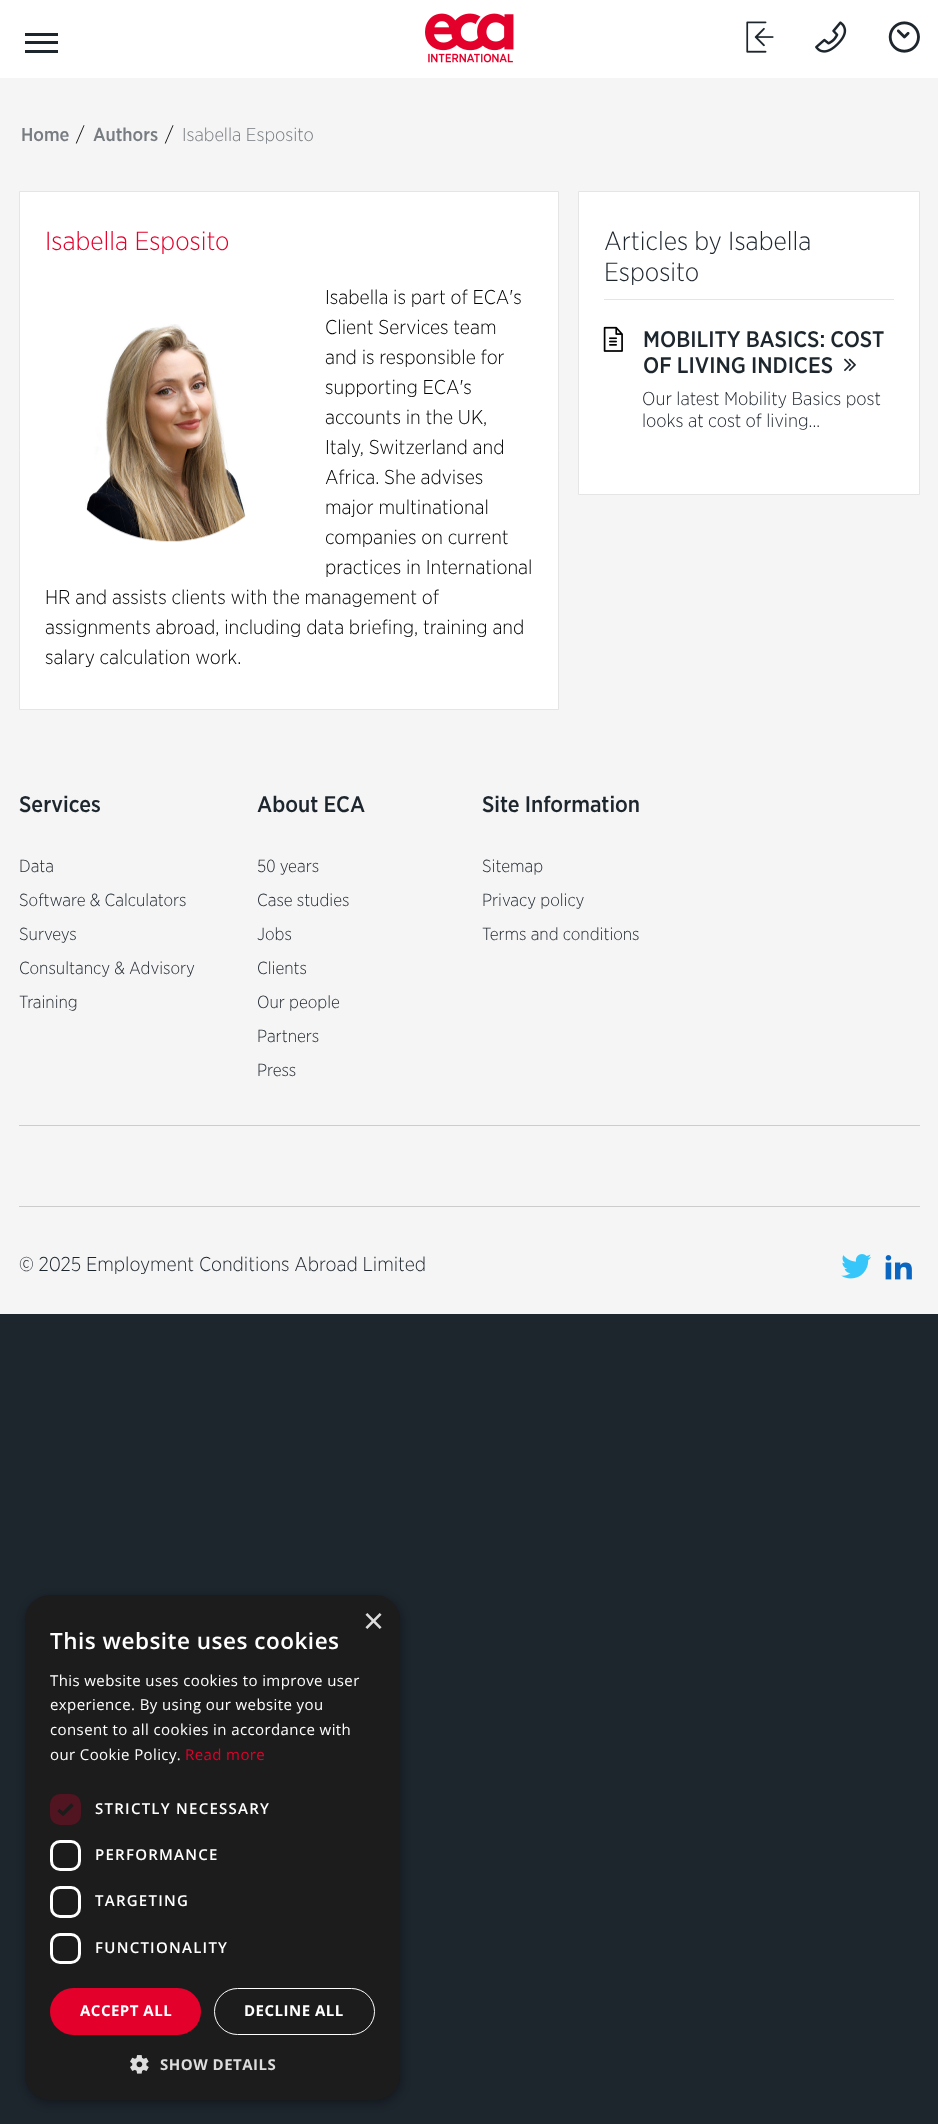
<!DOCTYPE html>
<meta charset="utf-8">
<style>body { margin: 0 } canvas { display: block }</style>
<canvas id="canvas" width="938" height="2124"></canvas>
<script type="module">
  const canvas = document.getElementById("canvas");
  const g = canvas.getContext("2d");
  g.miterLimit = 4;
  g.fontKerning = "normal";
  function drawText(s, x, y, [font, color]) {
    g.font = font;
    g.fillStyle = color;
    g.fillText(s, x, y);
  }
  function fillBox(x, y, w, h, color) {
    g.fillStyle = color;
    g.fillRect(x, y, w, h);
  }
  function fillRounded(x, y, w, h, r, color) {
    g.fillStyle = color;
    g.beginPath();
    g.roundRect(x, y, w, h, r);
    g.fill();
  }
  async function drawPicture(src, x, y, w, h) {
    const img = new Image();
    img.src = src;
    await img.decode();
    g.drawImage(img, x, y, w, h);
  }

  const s1 = ["500 18.75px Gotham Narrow", "#777C81"];
  const s2 = ["300 20px Gotham Narrow", "#000000"];
  const s3 = ["300 18.75px Gotham Narrow", "#777C81"];
  const s4 = ["300 26.25px Gotham Narrow", "#E3002B"];
  const s5 = ["300 26.25px Gotham Narrow", "#1D252D"];
  const s6 = ["500 22.5px Gotham Narrow", "#1D252D"];
  const s7 = ["300 18.75px Gotham Narrow", "#1D252D"];
  const s8 = ["300 17.5px Gotham Narrow", "#1D252D"];
  const s9 = ["300 17.5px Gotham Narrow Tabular", "#1D252D"];
  const s10 = ["300 20px Gotham Narrow", "#1D252D"];
  const s11 = ["36px Liberation Sans", "#DDDDDD"];
  const s12 = ["600 22.5px Open Sans", "#FFFFFF"];
  const s13 = ["15px Open Sans", "#FFFFFF"];
  const s14 = ["15px Open Sans", "#E3002B"];
  const s15 = ["600 15px Open Sans", "#FFFFFF"];
  const s16 = ["bold 15px Open Sans", "#FFFFFF"];
  const s17 = ["bold 15px Open Sans", "#DDDDDD"];

  fillBox(0, 0, 938, 2124, "#1D252D");
  fillBox(0, 0, 938, 78, "#FFFFFF");
  fillBox(25, 41, 33, 3, "#1D252D");
  fillBox(25, 33, 33, 3, "#1D252D");
  fillBox(25, 50, 33, 3, "#1D252D");
  await drawPicture("pic1.png", 425, 13, 89, 50);
  await drawPicture("pic2.png", 746, 21, 28, 32);
  await drawPicture("pic3.png", 815, 21, 32, 32);
  await drawPicture("pic4.png", 888, 21, 32, 32);
  fillBox(0, 78, 938, 1236, "#F5F5F5");
  drawText("Home", 21, 141, s1);
  drawText("/", 76, 141, s2);
  drawText("Authors", 93, 141, s1);
  drawText("/", 165, 141, s2);
  drawText("Isabella Esposito", 182, 141, s3);
  g.fillStyle = "#FFFFFF";
  g.beginPath();
  g.rect(19.5, 191.5, 539, 518);
  g.fill();
  g.strokeStyle = "#E5E5E5";
  g.stroke();
  drawText("Isabella Esposito", 45, 250, s4);
  drawText("Isabella is part of ECA's", 325, 304, s2);
  drawText("Client Services team", 325, 334, s2);
  drawText("and is responsible for", 325, 364, s2);
  drawText("supporting ECA's", 325, 394, s2);
  drawText("accounts in the UK,", 325, 424, s2);
  drawText("Italy, Switzerland and", 325, 454, s2);
  drawText("Africa. She advises", 325, 484, s2);
  drawText("major multinational", 325, 514, s2);
  drawText("companies on current", 325, 544, s2);
  drawText("practices in International", 325, 574, s2);
  drawText("HR and assists clients with the management of", 45, 604, s2);
  drawText("assignments abroad, including data briefing, training and", 45, 634, s2);
  drawText("salary calculation work.", 45, 664, s2);
  await drawPicture("pic5.png", 85, 324, 161, 218);
  g.fillStyle = "#FFFFFF";
  g.beginPath();
  g.rect(578.5, 191.5, 341, 303);
  g.fill();
  g.stroke();
  fillBox(604, 299, 290, 1, "#E5E5E5");
  drawText("Articles by Isabella", 604, 250, s5);
  drawText("Esposito", 604, 281, s5);
  await drawPicture("pic6.png", 603, 326, 20, 26);
  drawText("MOBILITY BASICS: COST", 643, 347, s6);
  drawText("OF LIVING INDICES", 643, 373, s6);
  await drawPicture("pic7.png", 844, 358, 12, 14);
  drawText("Our latest Mobility Basics post", 642, 405, s7);
  drawText("looks at cost of living...", 642, 427, s7);
  drawText("Services", 19, 812, s6);
  drawText("Data", 19, 872, s8);
  drawText("Software & Calculators", 19, 906, s8);
  drawText("Surveys", 19, 940, s8);
  drawText("Consultancy & Advisory", 19, 974, s8);
  drawText("Training", 19, 1008, s8);
  drawText("About ECA", 257, 812, s6);
  drawText("50 years", 257, 872, s9);
  drawText("Case studies", 257, 906, s8);
  drawText("Jobs", 257, 940, s8);
  drawText("Clients", 257, 974, s8);
  drawText("Our people", 257, 1008, s8);
  drawText("Partners", 257, 1042, s8);
  drawText("Press", 257, 1076, s8);
  drawText("Site Information", 482, 812, s6);
  drawText("Sitemap", 482, 872, s8);
  drawText("Privacy policy", 482, 906, s8);
  drawText("Terms and conditions", 482, 940, s8);
  fillBox(19, 1125, 901, 1, "#CCCCCC");
  fillBox(19, 1206, 901, 1, "#CCCCCC");
  drawText("© 2025 Employment Conditions Abroad Limited", 19, 1271, s10);
  await drawPicture("pic8.png", 841, 1254, 31, 25);
  await drawPicture("pic9.png", 885, 1255, 27, 25);
  g.fillStyle = "rgba(0, 0, 0, 0.35)";
  g.filter = "blur(5px)";
  g.beginPath();
  g.roundRect(26, 1598, 375, 505, 25);
  g.fill();
  g.filter = "none";
  fillRounded(25, 1595, 375, 505, 25, "#1C1C1C");
  drawText("×", 363, 1633, s11);
  g.letterSpacing = "0.5px";
  drawText("This website uses cookies", 50, 1649, s12);
  g.letterSpacing = "0.4px";
  drawText("This website uses cookies to improve user", 50, 1686, s13);
  drawText("experience. By using our website you", 50, 1710, s13);
  drawText("consent to all cookies in accordance with", 50, 1735, s13);
  drawText("our Cookie Policy.", 50, 1760, s13);
  drawText("Read more", 185, 1760, s14);
  fillRounded(50, 1794, 31, 31, 10, "#501520");
  g.beginPath();
  g.moveTo(58.5, 1810);
  g.lineTo(63, 1814);
  g.lineTo(72.5, 1804.5);
  g.strokeStyle = "#1C1C1C";
  g.lineWidth = 3.3;
  g.stroke();
  g.letterSpacing = "1.25px";
  drawText("STRICTLY NECESSARY", 95, 1814, s15);
  g.beginPath();
  g.roundRect(51.5, 1841.5, 28, 28, 8.5);
  g.strokeStyle = "#FFFFFF";
  g.lineWidth = 3;
  g.stroke();
  drawText("PERFORMANCE", 95, 1860, s15);
  g.beginPath();
  g.roundRect(51.5, 1887.5, 28, 29, 8.5);
  g.stroke();
  drawText("TARGETING", 95, 1906, s15);
  g.beginPath();
  g.roundRect(51.5, 1934.5, 28, 28, 8.5);
  g.stroke();
  drawText("FUNCTIONALITY", 95, 1953, s15);
  fillRounded(50, 1988, 151, 47, 23.5, "#E3002B");
  g.letterSpacing = "0.5px";
  drawText("ACCEPT ALL", 80, 2016, s16);
  g.beginPath();
  g.roundRect(214.5, 1988.5, 160, 46, 23);
  g.lineWidth = 1;
  g.stroke();
  drawText("DECLINE ALL", 244, 2016, s16);
  await drawPicture("pic10.png", 130, 2055, 19, 19);
  drawText("SHOW DETAILS", 160, 2070, s17);
</script>
